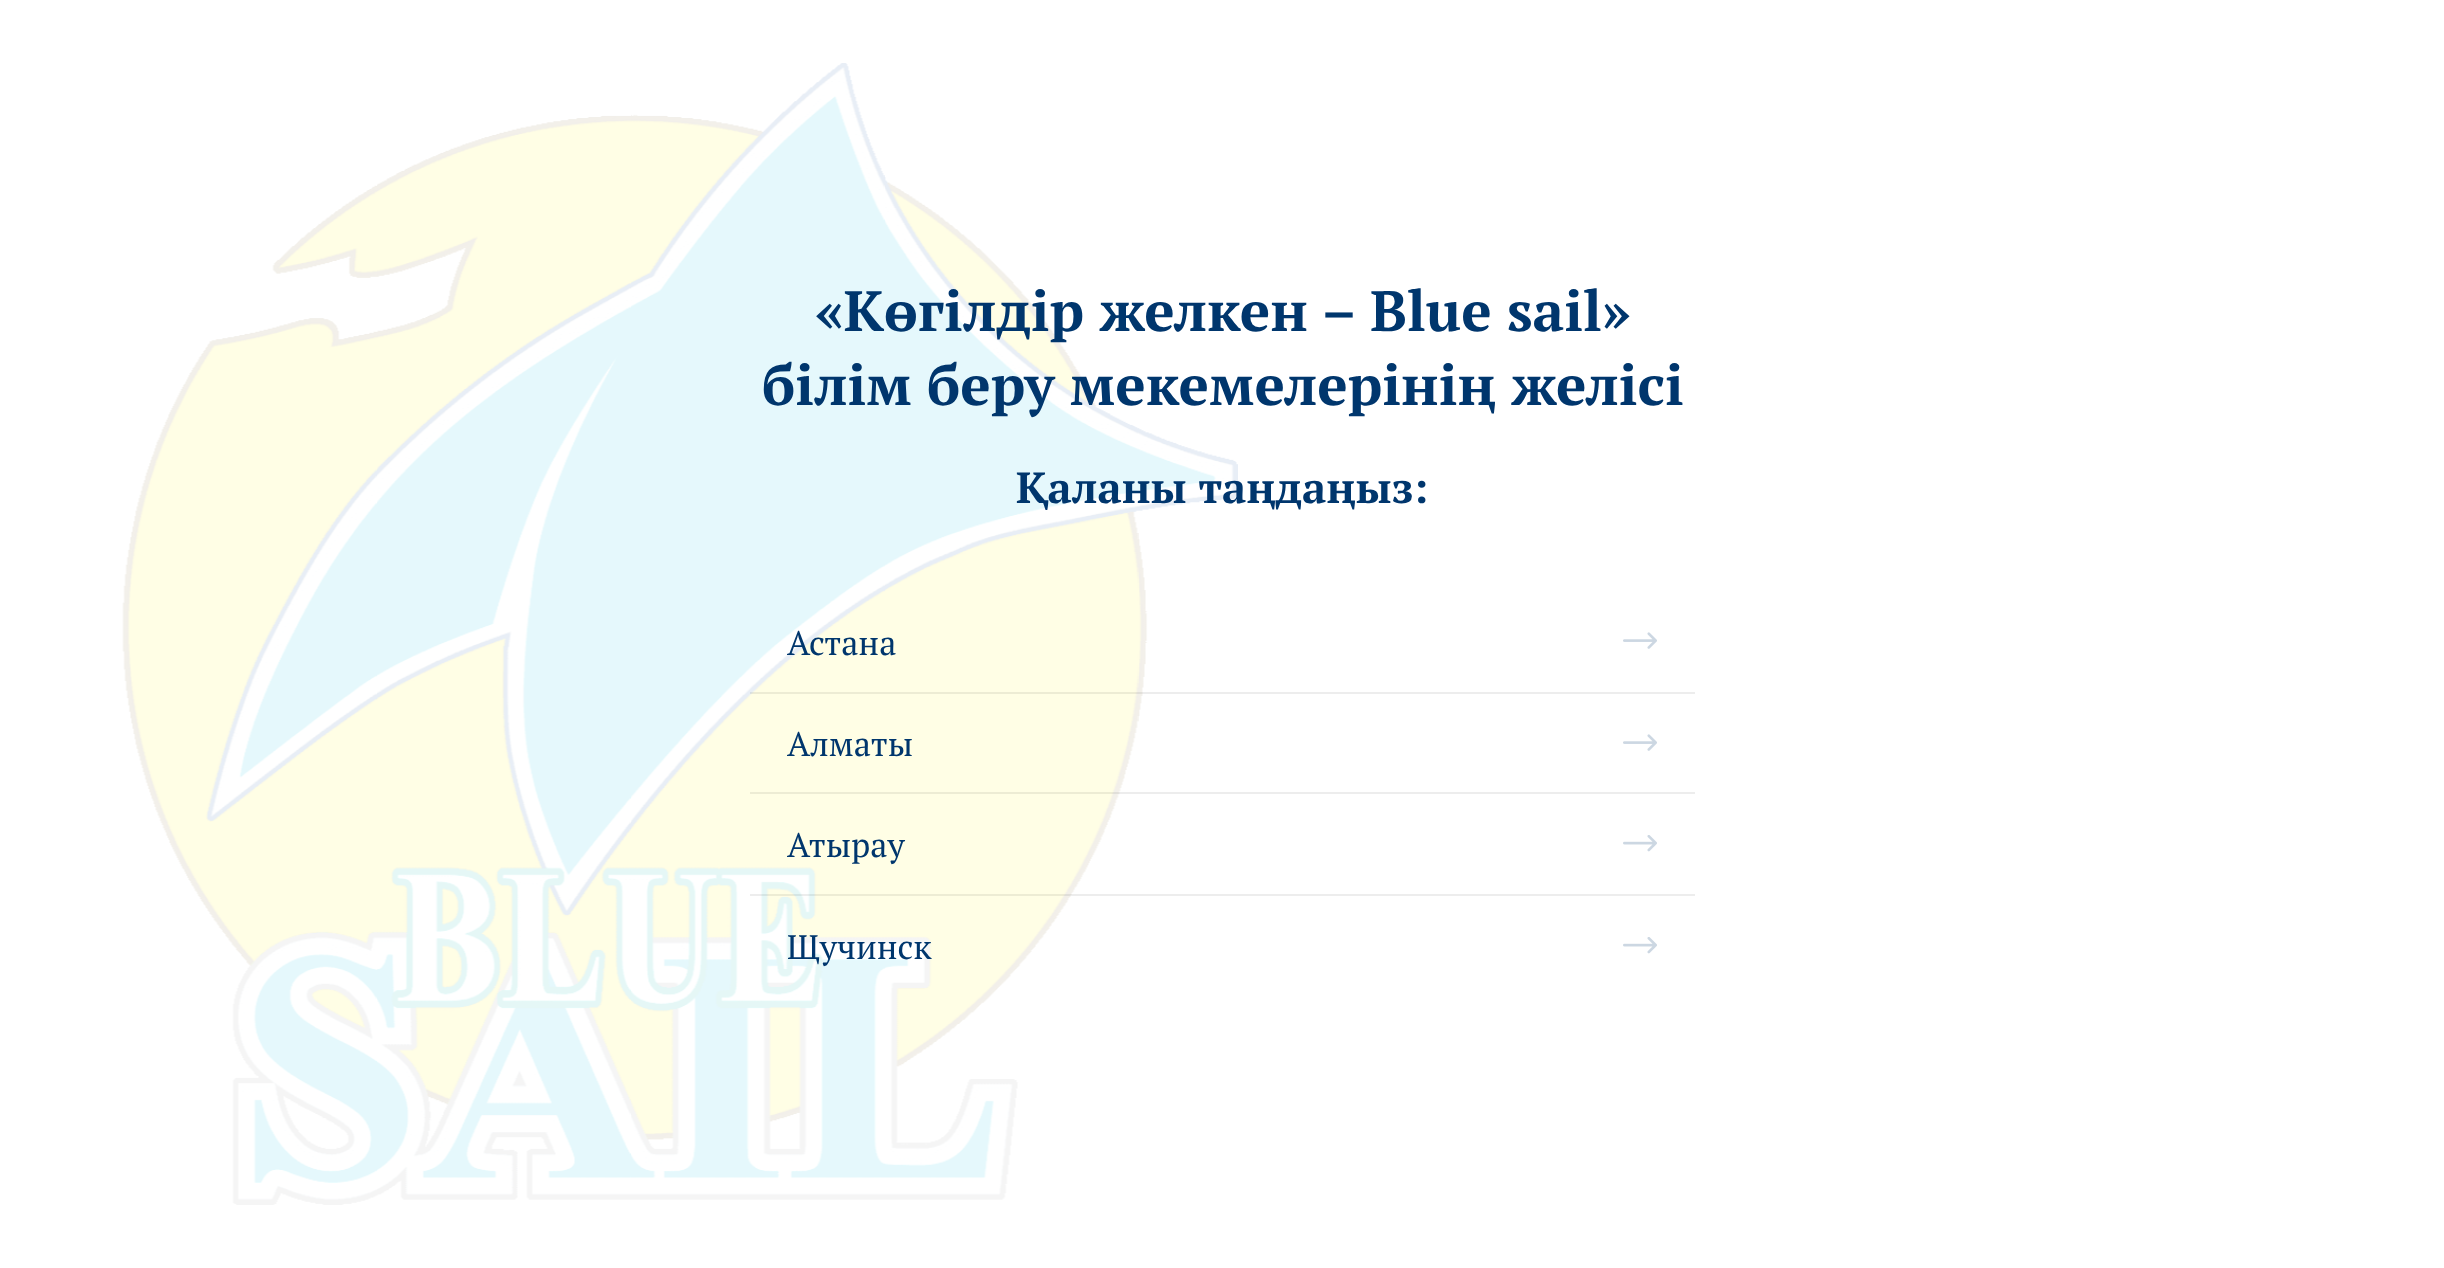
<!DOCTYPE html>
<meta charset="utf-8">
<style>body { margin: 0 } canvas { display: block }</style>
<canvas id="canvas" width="2444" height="1268"></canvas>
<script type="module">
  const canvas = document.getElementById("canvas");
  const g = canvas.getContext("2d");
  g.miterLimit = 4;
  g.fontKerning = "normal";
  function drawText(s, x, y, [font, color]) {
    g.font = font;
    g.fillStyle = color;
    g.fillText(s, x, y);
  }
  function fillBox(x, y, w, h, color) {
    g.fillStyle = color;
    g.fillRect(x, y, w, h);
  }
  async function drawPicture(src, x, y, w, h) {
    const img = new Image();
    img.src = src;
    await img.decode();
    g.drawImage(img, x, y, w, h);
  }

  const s1 = ["bold 56.75px PT Serif", "#00366D"];
  const s2 = ["bold 43.5px PT Serif", "#00366D"];
  const s3 = ["34px PT Serif", "#00366D"];

  fillBox(0, 0, 2444, 1268, "#FFFFFF");
  await drawPicture("pic1.png", 122, 63, 1116, 1142);
  drawText("«Көгілдір желкен – Blue sail»", 815, 331, s1);
  drawText("білім беру мекемелерінің желісі", 762, 405, s1);
  drawText("Қаланы таңдаңыз:", 1016, 503, s2);
  fillBox(750, 692, 945, 2, "rgba(0, 0, 0, 0.07)");
  drawText("Астана", 787, 655, s3);
  await drawPicture("pic2.png", 1623, 632, 34, 17);
  fillBox(750, 792, 945, 2, "rgba(0, 0, 0, 0.07)");
  drawText("Алматы", 787, 756, s3);
  await drawPicture("pic2.png", 1623, 734, 34, 17);
  fillBox(750, 894, 945, 2, "rgba(0, 0, 0, 0.07)");
  drawText("Атырау", 787, 857, s3);
  await drawPicture("pic3.png", 1623, 835, 34, 17);
  drawText("Щучинск", 787, 959, s3);
  await drawPicture("pic3.png", 1623, 937, 34, 17);
</script>
